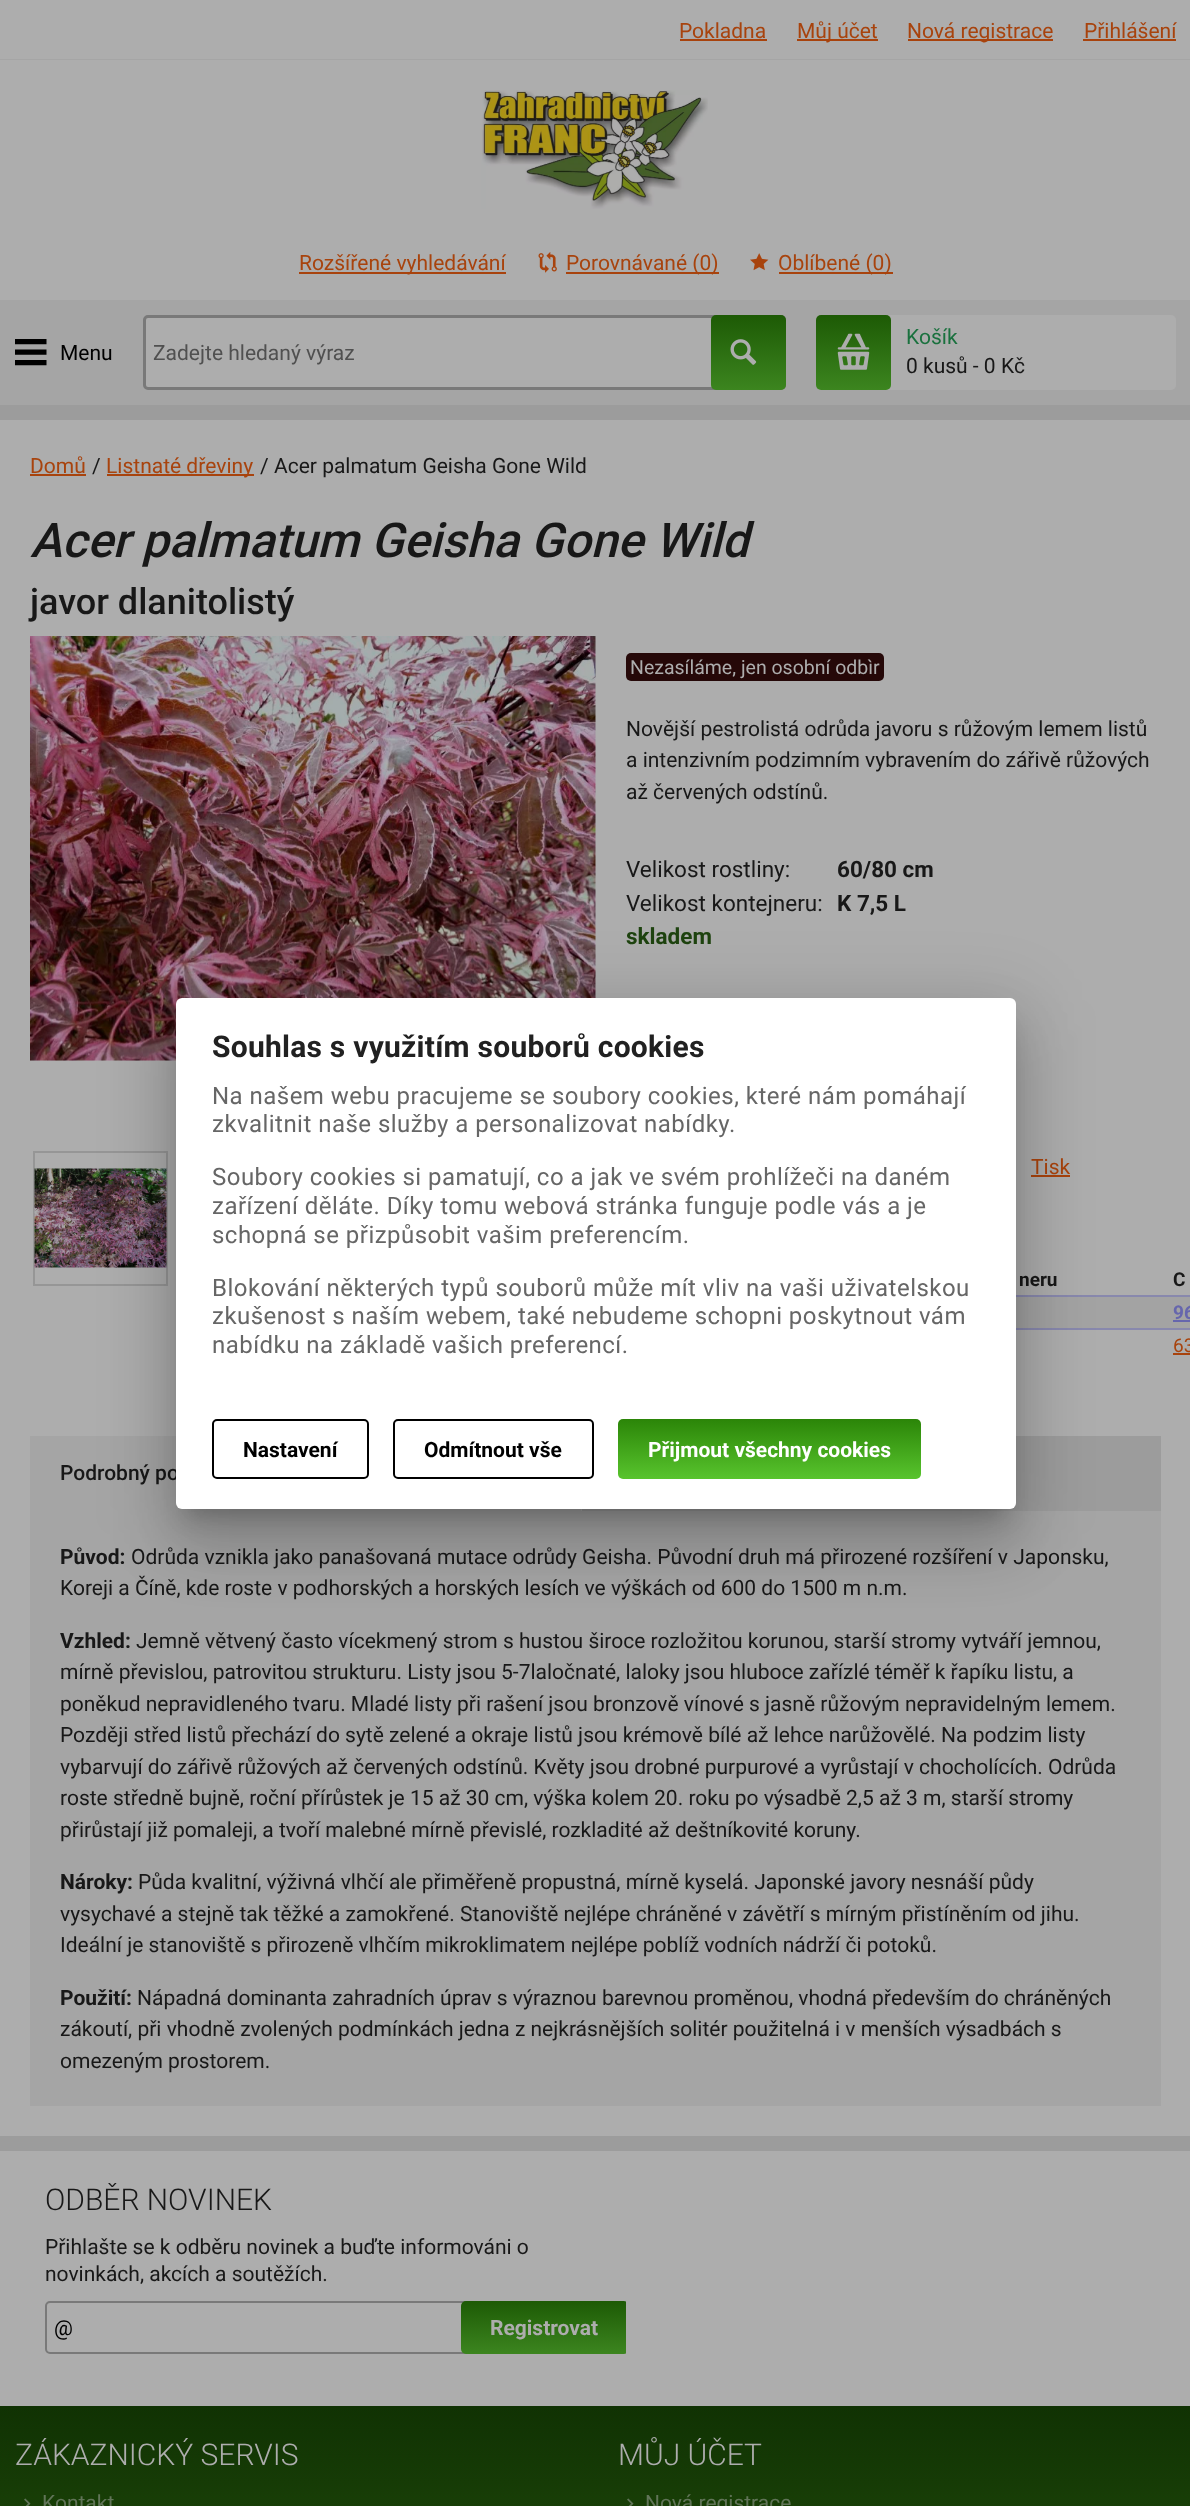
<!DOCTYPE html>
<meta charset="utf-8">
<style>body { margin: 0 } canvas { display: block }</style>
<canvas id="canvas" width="1190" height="2506"></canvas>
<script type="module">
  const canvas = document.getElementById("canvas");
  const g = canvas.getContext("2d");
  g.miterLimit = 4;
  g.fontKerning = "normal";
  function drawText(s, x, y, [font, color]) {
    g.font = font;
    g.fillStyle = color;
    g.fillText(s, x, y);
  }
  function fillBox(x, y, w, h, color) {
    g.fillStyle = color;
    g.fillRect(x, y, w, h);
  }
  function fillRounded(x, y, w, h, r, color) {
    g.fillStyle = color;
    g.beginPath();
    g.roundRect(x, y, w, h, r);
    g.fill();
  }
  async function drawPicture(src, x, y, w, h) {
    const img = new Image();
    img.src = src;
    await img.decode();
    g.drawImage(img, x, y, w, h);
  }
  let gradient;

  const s1 = ["21px Roboto", "#A8430D"];
  const s2 = ["21px Roboto", "#000000"];
  const s3 = ["21px Roboto", "#505050"];
  const s4 = ["21px Roboto", "#1A713E"];
  const s5 = ["21px Roboto", "#181818"];
  const s6 = ["italic 500 48px Roboto", "#181818"];
  const s7 = ["500 36px Roboto", "#181818"];
  const s8 = ["19.5px Roboto", "#ADADAD"];
  const s9 = ["22.5px Roboto", "#181818"];
  const s10 = ["bold 22.5px Roboto", "#181818"];
  const s11 = ["bold 22.5px Roboto", "#1E430F"];
  const s12 = ["bold 19px Roboto", "#181818"];
  const s13 = ["bold 19px Roboto", "#6666AD"];
  const s14 = ["19px Roboto", "#A8430D"];
  const s15 = ["500 21px Roboto", "#181818"];
  const s16 = ["bold 21px Roboto", "#181818"];
  const s17 = ["300 30px Roboto", "#181818"];
  const s18 = ["bold 21px Roboto", "#ADADAD"];
  const s19 = ["300 30px Roboto", "#ADADAD"];
  const s20 = ["21px Roboto", "#617458"];
  const s21 = ["bold 30px Roboto", "#212121"];
  const s22 = ["24px Roboto", "#666666"];
  const s23 = ["bold 21px Roboto", "#000000"];
  const s24 = ["bold 21px Roboto", "#FFFFFF"];

  fillBox(0, 0, 1190, 2506, "#ADADAD");
  fillBox(0, 59, 1190, 1, "#A5A5A5");
  drawText("Pokladna", 679, 38, s1);
  fillBox(680, 39, 87, 2, "#A8430D");
  fillBox(797, 39, 81, 2, "#A8430D");
  drawText("Můj účet", 797, 38, s1);
  fillBox(908, 39, 145, 2, "#A8430D");
  drawText("Nová registrace", 907, 38, s1);
  drawText("Přihlášení", 1084, 38, s1);
  fillBox(1083, 39, 93, 2, "#A8430D");
  await drawPicture("pic1.png", 481, 90, 227, 119);
  fillBox(299, 272, 207, 2, "#A8430D");
  drawText("Rozšířené vyhledávání", 299, 270, s1);
  await drawPicture("pic2.png", 538, 252, 19, 21);
  fillBox(566, 272, 153, 2, "#A8430D");
  drawText("Porovnávané (0)", 566, 270, s1);
  await drawPicture("pic3.png", 750, 253, 19, 18);
  fillBox(779, 272, 114, 2, "#A8430D");
  drawText("Oblíbené (0)", 778, 270, s1);
  fillBox(0, 300, 1190, 105, "#A5A5A5");
  await drawPicture("pic4.png", 15, 339, 32, 27);
  drawText("Menu", 60, 360, s2);
  g.fillStyle = "#ADADAD";
  g.beginPath();
  g.roundRect(144.5, 316.5, 640, 72, 3.5);
  g.fill();
  g.strokeStyle = "#797979";
  g.lineWidth = 3;
  g.stroke();
  drawText("Zadejte hledaný výraz", 153, 360, s3);
  gradient = g.createLinearGradient(749, 390, 749, 315);
  gradient.addColorStop(0, "#3C851F");
  gradient.addColorStop(1, "#1D5A05");
  g.fillStyle = gradient;
  g.beginPath();
  g.roundRect(711, 315, 75, 75, 5);
  g.fill();
  await drawPicture("pic5.png", 730, 339, 27, 26);
  fillRounded(816, 315, 360, 75, 5, "#ADADAD");
  gradient = g.createLinearGradient(854, 390, 854, 315);
  gradient.addColorStop(0, "#3C851F");
  gradient.addColorStop(1, "#1D5A05");
  g.fillStyle = gradient;
  g.beginPath();
  g.roundRect(816, 315, 75, 75, 5);
  g.fill();
  await drawPicture("pic6.png", 837, 333, 33, 37);
  drawText("Košík", 906, 344, s4);
  drawText("0 kusů - 0 Kč", 906, 373, s5);
  fillBox(0, 405, 1190, 15, "#9C9C9C");
  fillBox(0, 2136, 1190, 15, "#9C9C9C");
  drawText("Domů", 30, 473, s1);
  fillBox(30, 474, 56, 2, "#A8430D");
  drawText("/", 92, 473, s5);
  fillBox(107, 474, 147, 2, "#A8430D");
  drawText("Listnaté dřeviny", 106, 473, s1);
  drawText("/", 260, 473, s5);
  drawText("Acer palmatum Geisha Gone Wild", 274, 473, s5);
  drawText("Acer palmatum Geisha Gone Wild", 30, 557, s6);
  drawText("javor dlanitolistý", 30, 614, s7);
  await drawPicture("pic7.png", 30, 636, 566, 425);
  g.strokeStyle = "#969696";
  g.lineWidth = 2;
  g.strokeRect(34, 1152, 133, 133);
  await drawPicture("pic8.png", 34, 1168, 133, 100);
  fillRounded(626, 653, 258, 28, 5, "#250808");
  drawText("Nezasíláme, jen osobní odbìr", 630, 674, s8);
  drawText("Novější pestrolistá odrůda javoru s růžovým lemem listů", 626, 736, s5);
  drawText("a intenzivním podzimním vybravením do zářivě růžových", 626, 767, s5);
  drawText("až červených odstínů.", 626, 799, s5);
  drawText("Velikost rostliny:", 626, 877, s9);
  drawText("60/80 cm", 837, 877, s10);
  drawText("Velikost kontejneru:", 626, 911, s9);
  drawText("K 7,5 L", 837, 911, s10);
  drawText("skladem", 626, 944, s11);
  drawText("Tisk", 1031, 1174, s1);
  fillBox(1031, 1175, 39, 2, "#A8430D");
  drawText("neru", 1019, 1286, s12);
  drawText("C", 1173, 1286, s12);
  fillBox(1016, 1297, 174, 31, "#A3A3A3");
  fillBox(1016, 1295, 174, 2, "#8888AD");
  fillBox(1016, 1328, 174, 2, "#8888AD");
  drawText("96", 1173, 1319, s13);
  fillBox(1173, 1320, 17, 2, "#6666AD");
  drawText("63", 1173, 1352, s14);
  fillBox(1173, 1353, 17, 2, "#A8430D");
  fillBox(30, 1436, 551, 75, "#A5A5A5");
  drawText("Podrobný po", 60, 1480, s15);
  fillBox(582, 1436, 579, 75, "#9C9C9C");
  fillBox(30, 1511, 1131, 595, "#A5A5A5");
  drawText("Původ:", 60, 1564, s16);
  drawText("Odrůda vznikla jako panašovaná mutace odrůdy Geisha. Původní druh má přirozené rozšíření v Japonsku,", 131, 1564, s5);
  drawText("Koreji a Číně, kde roste v podhorských a horských lesích ve výškách od 600 do 1500 m n.m.", 60, 1595, s5);
  drawText("Vzhled:", 60, 1648, s16);
  drawText("Jemně větvený často vícekmený strom s hustou široce rozložitou korunou, starší stromy vytváří jemnou,", 136, 1648, s5);
  drawText("mírně převislou, patrovitou strukturu. Listy jsou 5-7laločnaté, laloky jsou hluboce zařízlé téměř k řapíku listu, a", 60, 1679, s5);
  drawText("poněkud nepravidleného tvaru. Mladé listy při rašení jsou bronzově vínové s jasně růžovým nepravidelným lemem.", 60, 1711, s5);
  drawText("Později střed listů přechází do sytě zelené a okraje listů jsou krémově bílé až lehce narůžovělé. Na podzim listy", 60, 1742, s5);
  drawText("vybarvují do zářivě růžových až červených odstínů. Květy jsou drobné purpurové a vyrůstají v chocholících. Odrůda", 60, 1774, s5);
  drawText("roste středně bujně, roční přírůstek je 15 až 30 cm, výška kolem 20. roku po výsadbě 2,5 až 3 m, starší stromy", 60, 1805, s5);
  drawText("přirůstají již pomaleji, a tvoří malebné mírně převislé, rozkladité až deštníkovité koruny.", 60, 1837, s5);
  drawText("Nároky:", 60, 1889, s16);
  drawText("Půda kvalitní, výživná vlhčí ale přiměřeně propustná, mírně kyselá. Japonské javory nesnáší půdy", 138, 1889, s5);
  drawText("vysychavé a stejně tak těžké a zamokřené. Stanoviště nejlépe chráněné v závětří s mírným přistíněním od jihu.", 60, 1921, s5);
  drawText("Ideální je stanoviště s přirozeně vlhčím mikroklimatem nejlépe poblíž vodních nádrží či potoků.", 60, 1952, s5);
  drawText("Použití:", 60, 2005, s16);
  drawText("Nápadná dominanta zahradních úprav s výraznou barevnou proměnou, vhodná především do chráněných", 137, 2005, s5);
  drawText("zákoutí, při vhodně zvolených podmínkách jedna z nejkrásnějších solitér použitelná i v menších výsadbách s", 60, 2036, s5);
  drawText("omezeným prostorem.", 60, 2068, s5);
  drawText("ODBĚR NOVINEK", 45, 2210, s17);
  drawText("Přihlašte se k odběru novinek a buďte informováni o", 45, 2254, s5);
  drawText("novinkách, akcích a soutěžích.", 45, 2281, s5);
  g.beginPath();
  g.roundRect(46, 2302, 579, 51, 4);
  g.strokeStyle = "#797979";
  g.stroke();
  drawText("@", 54, 2335, s2);
  g.save();
  g.beginPath();
  g.rect(45, 2181, 581, 195);
  g.clip();
  gradient = g.createLinearGradient(545, 2354, 545, 2301);
  gradient.addColorStop(0, "#3C851F");
  gradient.addColorStop(1, "#1D5A05");
  g.fillStyle = gradient;
  g.beginPath();
  g.roundRect(461, 2301, 168, 53, 5);
  g.fill();
  g.restore();
  drawText("Registrovat", 490, 2335, s18);
  gradient = g.createLinearGradient(596, 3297, 596, 2406);
  gradient.addColorStop(0, "#569C24");
  gradient.addColorStop(1, "#103203");
  g.fillStyle = gradient;
  g.fillRect(0, 2406, 1190, 100);
  drawText("ZÁKAZNICKÝ SERVIS", 15, 2465, s19);
  await drawPicture("pic9.png", 24, 2498, 7, 8);
  drawText("Kontakt", 42, 2510, s20);
  drawText("MŮJ ÚČET", 618, 2465, s19);
  await drawPicture("pic9.png", 627, 2498, 7, 8);
  drawText("Nová registrace", 645, 2510, s20);
  g.fillStyle = "rgba(0, 0, 0, 0.12)";
  g.filter = "blur(34.5px)";
  g.beginPath();
  g.roundRect(164, 999, 864, 536, 18);
  g.fill();
  g.filter = "none";
  g.fillStyle = "rgba(0, 0, 0, 0.14)";
  g.filter = "blur(28.5px)";
  g.beginPath();
  g.roundRect(171, 1029, 849, 521, 11);
  g.fill();
  g.filter = "none";
  g.fillStyle = "rgba(0, 0, 0, 0.2)";
  g.filter = "blur(11px)";
  g.beginPath();
  g.rect(186, 1025, 819, 490);
  g.fill();
  g.filter = "none";
  fillRounded(176, 998, 840, 511, 6, "#FFFFFF");
  g.letterSpacing = "0.25px";
  drawText("Souhlas s využitím souborů cookies", 212, 1057, s21);
  g.letterSpacing = "0.47px";
  drawText("Na našem webu pracujeme se soubory cookies, které nám pomáhají", 212, 1104, s22);
  drawText("zkvalitnit naše služby a personalizovat nabídky.", 212, 1132, s22);
  drawText("Soubory cookies si pamatují, co a jak ve svém prohlížeči na daném", 212, 1185, s22);
  drawText("zařízení děláte. Díky tomu webová stránka funguje podle vás a je", 212, 1214, s22);
  drawText("schopná se přizpůsobit vašim preferencím.", 212, 1243, s22);
  drawText("Blokování některých typů souborů může mít vliv na vaši uživatelskou", 212, 1296, s22);
  drawText("zkušenost s naším webem, také nebudeme schopni poskytnout vám", 212, 1324, s22);
  drawText("nabídku na základě vašich preferencí.", 212, 1353, s22);
  g.beginPath();
  g.roundRect(213, 1420, 155, 58, 4);
  g.strokeStyle = "#000000";
  g.stroke();
  g.letterSpacing = "0px";
  drawText("Nastavení", 243, 1457, s23);
  g.beginPath();
  g.roundRect(394, 1420, 199, 58, 4);
  g.stroke();
  drawText("Odmítnout vše", 424, 1457, s23);
  gradient = g.createLinearGradient(770, 1479, 770, 1419);
  gradient.addColorStop(0, "#58C42D");
  gradient.addColorStop(1, "#2B8508");
  g.fillStyle = gradient;
  g.beginPath();
  g.roundRect(618, 1419, 303, 60, 5);
  g.fill();
  drawText("Přijmout všechny cookies", 648, 1457, s24);
</script>
